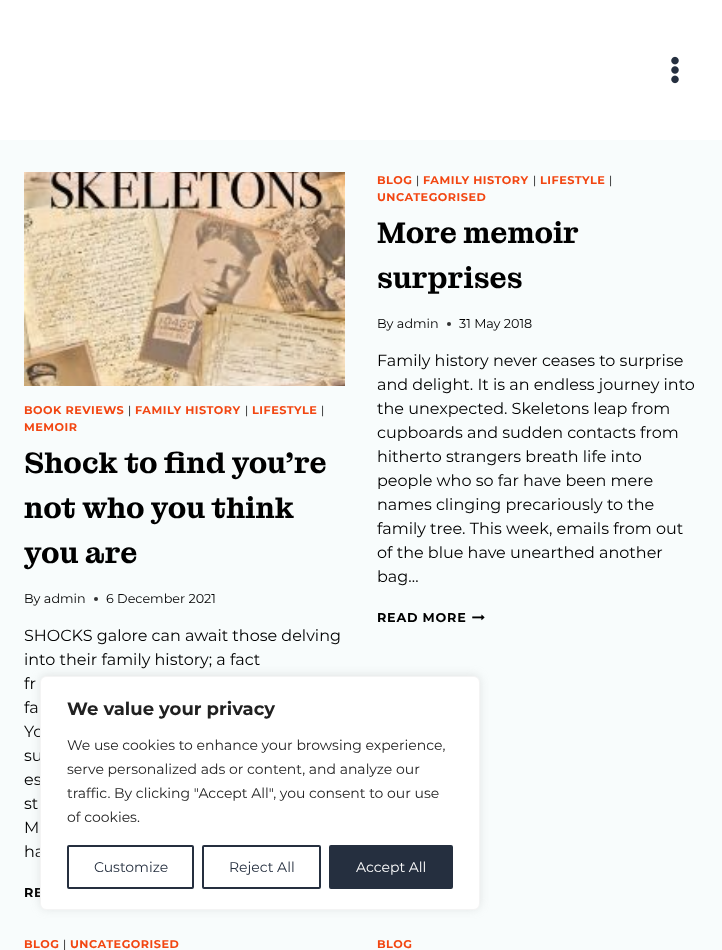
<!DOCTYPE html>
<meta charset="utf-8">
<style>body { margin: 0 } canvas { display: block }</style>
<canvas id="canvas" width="722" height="950"></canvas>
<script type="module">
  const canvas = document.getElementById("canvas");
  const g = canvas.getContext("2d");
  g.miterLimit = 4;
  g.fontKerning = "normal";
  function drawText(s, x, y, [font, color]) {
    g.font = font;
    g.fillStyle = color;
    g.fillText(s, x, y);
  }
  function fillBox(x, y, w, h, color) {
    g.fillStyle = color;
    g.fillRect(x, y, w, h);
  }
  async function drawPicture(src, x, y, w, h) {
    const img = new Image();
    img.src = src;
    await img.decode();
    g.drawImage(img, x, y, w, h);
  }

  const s1 = ["bold 11.25px Montserrat", "#F24611"];
  const s2 = ["11.25px Montserrat", "#000000"];
  const s3 = ["600 30px Montagu Slab", "#000000"];
  const s4 = ["12.75px Montserrat", "#000000"];
  const s5 = ["16px Montserrat", "#000000"];
  const s6 = ["bold 12.75px Montserrat", "#000000"];
  const s7 = ["bold 18px Montserrat", "#212121"];
  const s8 = ["14px Montserrat", "#212121"];
  const s9 = ["14px Montserrat", "#252F3F"];
  const s10 = ["14px Montserrat", "#FFFFFF"];

  fillBox(0, 0, 722, 950, "#F8FCFC");
  fillBox(0, 0, 722, 140, "#FFFFFF");
  await drawPicture("pic1.png", 671, 56, 8, 28);
  await drawPicture("pic2.png", 24, 172, 321, 214);
  g.letterSpacing = "0.5px";
  drawText("BOOK REVIEWS", 24, 414, s1);
  drawText("|", 128, 414, s2);
  drawText("FAMILY HISTORY", 135, 414, s1);
  drawText("|", 245, 414, s2);
  drawText("LIFESTYLE", 252, 414, s1);
  drawText("|", 321, 414, s2);
  drawText("MEMOIR", 24, 431, s1);
  g.letterSpacing = "0px";
  drawText("Shock to find you’re", 24, 473, s3);
  drawText("not who you think", 24, 518, s3);
  drawText("you are", 24, 563, s3);
  drawText("By admin", 24, 603, s4);
  g.fillStyle = "#323232";
  g.beginPath();
  g.arc(96, 599, 2, 0, Math.PI * 2);
  g.fill();
  drawText("6 December 2021", 106, 603, s4);
  drawText("SHOCKS galore can await those delving", 24, 641, s5);
  drawText("into their family history; a fact", 24, 665, s5);
  drawText("fr", 24, 689, s5);
  drawText("fa", 24, 713, s5);
  drawText("Yo", 24, 737, s5);
  drawText("su", 24, 761, s5);
  drawText("es", 24, 785, s5);
  drawText("st", 24, 809, s5);
  drawText("M", 24, 833, s5);
  drawText("ha", 24, 857, s5);
  g.letterSpacing = "0.75px";
  drawText("RE", 24, 897, s6);
  g.letterSpacing = "0.5px";
  drawText("BLOG", 377, 184, s1);
  drawText("|", 416, 184, s2);
  drawText("FAMILY HISTORY", 423, 184, s1);
  drawText("|", 533, 184, s2);
  drawText("LIFESTYLE", 540, 184, s1);
  drawText("|", 609, 184, s2);
  drawText("UNCATEGORISED", 377, 201, s1);
  g.letterSpacing = "0px";
  drawText("More memoir", 377, 243, s3);
  drawText("surprises", 377, 288, s3);
  drawText("By admin", 377, 328, s4);
  g.fillStyle = "#323232";
  g.beginPath();
  g.arc(449, 324, 2, 0, Math.PI * 2);
  g.fill();
  drawText("31 May 2018", 459, 328, s4);
  drawText("Family history never ceases to surprise", 377, 366, s5);
  drawText("and delight. It is an endless journey into", 377, 390, s5);
  drawText("the unexpected. Skeletons leap from", 377, 414, s5);
  drawText("cupboards and sudden contacts from", 377, 438, s5);
  drawText("hitherto strangers breath life into", 377, 462, s5);
  drawText("people who so far have been mere", 377, 486, s5);
  drawText("names clinging precariously to the", 377, 510, s5);
  drawText("family tree. This week, emails from out", 377, 534, s5);
  drawText("of the blue have unearthed another", 377, 558, s5);
  drawText("bag…", 377, 582, s5);
  g.letterSpacing = "0.75px";
  drawText("READ MORE", 377, 622, s6);
  await drawPicture("pic3.png", 472, 614, 13, 7);
  g.letterSpacing = "0.5px";
  drawText("BLOG", 24, 948, s1);
  drawText("|", 63, 948, s2);
  drawText("UNCATEGORISED", 70, 948, s1);
  drawText("BLOG", 377, 948, s1);
  g.fillStyle = "rgba(172, 171, 171, 0.3)";
  g.filter = "blur(5px)";
  g.beginPath();
  g.roundRect(40, 675, 440, 234, 6);
  g.fill();
  g.filter = "none";
  g.fillStyle = "#FFFFFF";
  g.beginPath();
  g.roundRect(40.5, 676.5, 439, 233, 5.5);
  g.fill();
  g.strokeStyle = "#F4F4F4";
  g.stroke();
  g.letterSpacing = "0px";
  drawText("We value your privacy", 67, 715, s7);
  drawText("We use cookies to enhance your browsing experience,", 67, 750, s8);
  drawText("serve personalized ads or content, and analyze our", 67, 774, s8);
  drawText("traffic. By clicking \"Accept All\", you consent to our use", 67, 798, s8);
  drawText("of cookies.", 67, 822, s8);
  g.beginPath();
  g.roundRect(68, 846, 125, 42, 1);
  g.strokeStyle = "#252F3F";
  g.lineWidth = 2;
  g.stroke();
  drawText("Customize", 94, 872, s9);
  g.beginPath();
  g.roundRect(203, 846, 117, 42, 1);
  g.stroke();
  drawText("Reject All", 229, 872, s9);
  g.beginPath();
  g.roundRect(330, 846, 122, 42, 1);
  g.fill();
  g.stroke();
  drawText("Accept All", 356, 872, s10);
</script>
